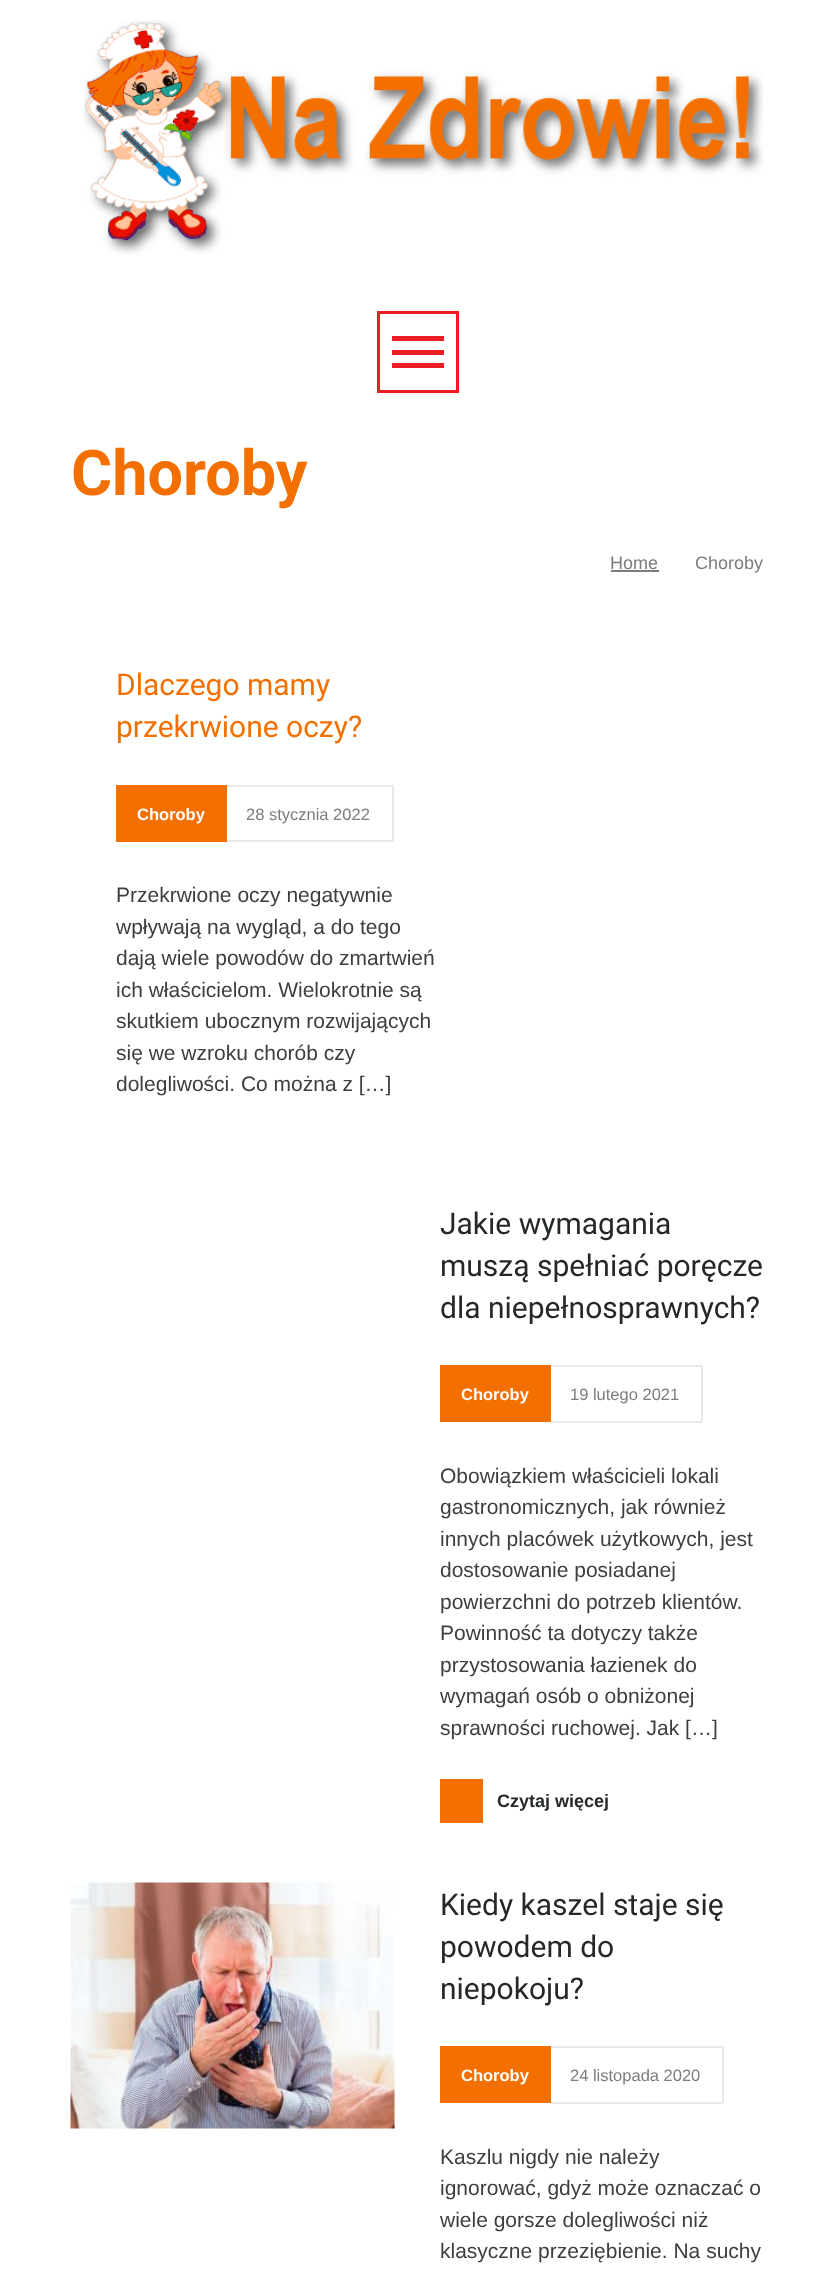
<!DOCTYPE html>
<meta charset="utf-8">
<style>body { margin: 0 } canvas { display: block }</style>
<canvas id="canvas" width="834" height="2273"></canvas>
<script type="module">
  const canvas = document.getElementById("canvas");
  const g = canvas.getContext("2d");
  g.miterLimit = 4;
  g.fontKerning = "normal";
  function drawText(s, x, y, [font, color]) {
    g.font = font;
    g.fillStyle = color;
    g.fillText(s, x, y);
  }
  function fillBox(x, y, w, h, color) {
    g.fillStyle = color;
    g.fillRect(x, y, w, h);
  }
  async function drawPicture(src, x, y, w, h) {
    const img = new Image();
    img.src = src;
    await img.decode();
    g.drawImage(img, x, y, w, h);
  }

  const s1 = ["bold 63px Roboto", "#F37000"];
  const s2 = ["18px Liberation Sans", "#7C7C7C"];
  const s3 = ["30px Roboto", "#F37000"];
  const s4 = ["bold 16.5px Liberation Sans", "#FFFFFF"];
  const s5 = ["16.5px Liberation Sans", "#7C7C7C"];
  const s6 = ["21px Liberation Sans", "#3E3E3E"];
  const s7 = ["30px Roboto", "#25282A"];
  const s8 = ["bold 18px Liberation Sans", "#25282A"];

  fillBox(0, 0, 834, 2273, "#FFFFFF");
  await drawPicture("pic1.png", 83, 20, 680, 235);
  g.strokeStyle = "#ED1C24";
  g.lineWidth = 3;
  g.strokeRect(378.5, 312.5, 79, 79);
  fillBox(392, 336, 52, 5, "#ED1C24");
  fillBox(392, 350, 52, 5, "#ED1C24");
  fillBox(392, 363, 52, 5, "#ED1C24");
  drawText("Choroby", 71, 495, s1);
  drawText("Home", 610, 569, s2);
  fillBox(611, 570, 48, 2, "#7C7C7C");
  drawText("Choroby", 695, 569, s2);
  drawText("Dlaczego mamy", 116, 695, s3);
  drawText("przekrwione oczy?", 116, 737, s3);
  fillBox(116, 785, 111, 57, "#F37000");
  drawText("Choroby", 137, 820, s4);
  fillBox(227, 785, 166, 2, "#E9E9E9");
  fillBox(392, 785, 2, 57, "#E9E9E9");
  fillBox(227, 840, 166, 2, "#E9E9E9");
  drawText("28 stycznia 2022", 246, 820, s5);
  drawText("Przekrwione oczy negatywnie", 116, 902, s6);
  drawText("wpływają na wygląd, a do tego", 116, 934, s6);
  drawText("dają wiele powodów do zmartwień", 116, 965, s6);
  drawText("ich właścicielom. Wielokrotnie są", 116, 997, s6);
  drawText("skutkiem ubocznym rozwijających", 116, 1028, s6);
  drawText("się we wzroku chorób czy", 116, 1060, s6);
  drawText("dolegliwości. Co można z […]", 116, 1091, s6);
  drawText("Jakie wymagania", 440, 1234, s7);
  drawText("muszą spełniać poręcze", 440, 1276, s7);
  drawText("dla niepełnosprawnych?", 440, 1318, s7);
  fillBox(440, 1365, 111, 57, "#F37000");
  drawText("Choroby", 461, 1400, s4);
  fillBox(551, 1365, 151, 2, "#E9E9E9");
  fillBox(701, 1365, 2, 57, "#E9E9E9");
  fillBox(551, 1421, 151, 2, "#E9E9E9");
  drawText("19 lutego 2021", 570, 1400, s5);
  drawText("Obowiązkiem właścicieli lokali", 440, 1483, s6);
  drawText("gastronomicznych, jak również", 440, 1514, s6);
  drawText("innych placówek użytkowych, jest", 440, 1546, s6);
  drawText("dostosowanie posiadanej", 440, 1577, s6);
  drawText("powierzchni do potrzeb klientów.", 440, 1609, s6);
  drawText("Powinność ta dotyczy także", 440, 1640, s6);
  drawText("przystosowania łazienek do", 440, 1672, s6);
  drawText("wymagań osób o obniżonej", 440, 1703, s6);
  drawText("sprawności ruchowej. Jak […]", 440, 1735, s6);
  fillBox(440, 1779, 43, 44, "#F37000");
  drawText("Czytaj więcej", 497, 1807, s8);
  await drawPicture("pic2.png", 70, 1882, 325, 247);
  drawText("Kiedy kaszel staje się", 440, 1915, s7);
  drawText("powodem do", 440, 1957, s7);
  drawText("niepokoju?", 440, 1999, s7);
  fillBox(440, 2046, 111, 57, "#F37000");
  drawText("Choroby", 461, 2081, s4);
  fillBox(551, 2046, 172, 2, "#E9E9E9");
  fillBox(722, 2046, 2, 57, "#E9E9E9");
  fillBox(551, 2102, 172, 2, "#E9E9E9");
  drawText("24 listopada 2020", 570, 2081, s5);
  drawText("Kaszlu nigdy nie należy", 440, 2164, s6);
  drawText("ignorować, gdyż może oznaczać o", 440, 2195, s6);
  drawText("wiele gorsze dolegliwości niż", 440, 2227, s6);
  drawText("klasyczne przeziębienie. Na suchy", 440, 2258, s6);
</script>
